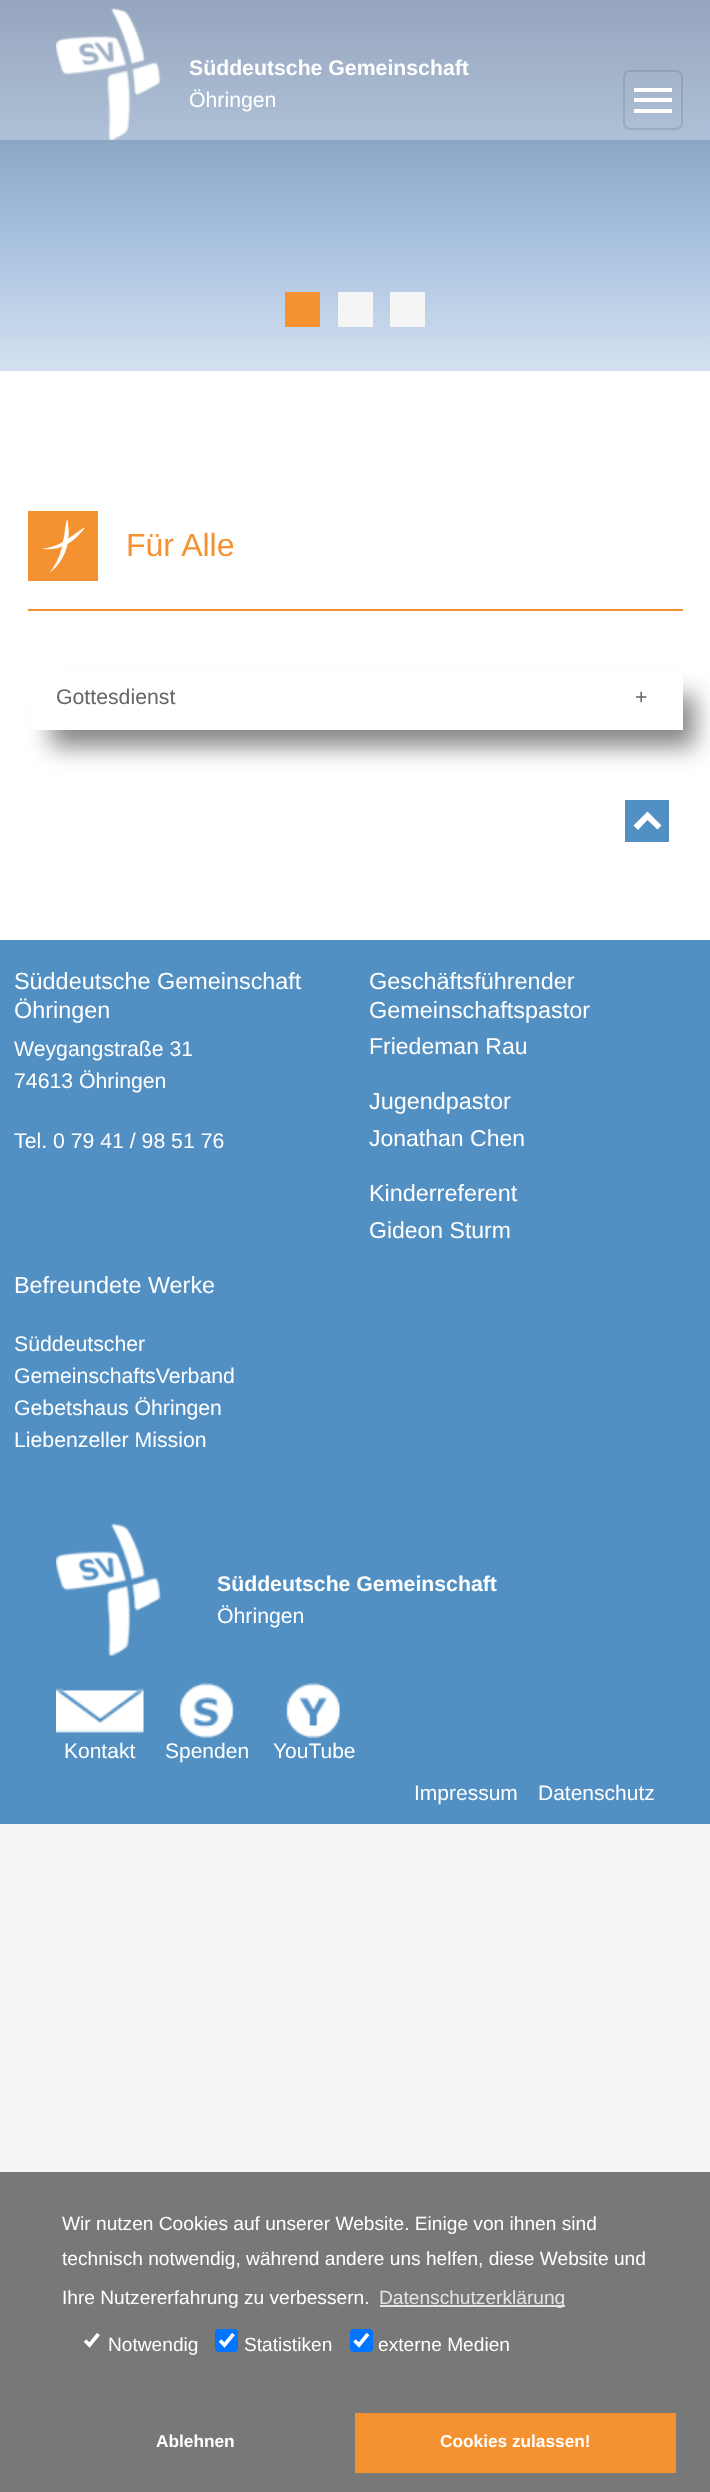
<!DOCTYPE html>
<meta charset="utf-8">
<style>body { margin: 0 } canvas { display: block }</style>
<canvas id="canvas" width="710" height="2492"></canvas>
<script type="module">
  const canvas = document.getElementById("canvas");
  const g = canvas.getContext("2d");
  g.miterLimit = 4;
  g.fontKerning = "normal";
  function drawText(s, x, y, [font, color]) {
    g.font = font;
    g.fillStyle = color;
    g.fillText(s, x, y);
  }
  function fillBox(x, y, w, h, color) {
    g.fillStyle = color;
    g.fillRect(x, y, w, h);
  }
  function fillRounded(x, y, w, h, r, color) {
    g.fillStyle = color;
    g.beginPath();
    g.roundRect(x, y, w, h, r);
    g.fill();
  }
  async function drawPicture(src, x, y, w, h) {
    const img = new Image();
    img.src = src;
    await img.decode();
    g.drawImage(img, x, y, w, h);
  }
  let gradient;

  const s1 = ["bold 21.25px Liberation Sans", "#FFFFFF"];
  const s2 = ["21.25px Liberation Sans", "#FFFFFF"];
  const s3 = ["32px Liberation Sans", "#F49232"];
  const s4 = ["21.25px Liberation Sans", "#666666"];
  const s5 = ["23.4px Liberation Sans", "#FFFFFF"];
  const s6 = ["23px Liberation Sans", "#FFFFFF"];
  const s7 = ["21px Liberation Sans", "#FFFFFF"];
  const s8 = ["19.15px Liberation Sans", "#FFFFFF"];
  const s9 = ["19.15px Liberation Sans", "#E4E4E4"];
  const s10 = ["bold 17.25px Liberation Sans", "#FFFFFF"];

  fillBox(0, 0, 710, 2492, "#F5F5F5");
  fillBox(0, 371, 710, 569, "#FFFFFF");
  gradient = g.createLinearGradient(355, 0, 355, 499);
  gradient.addColorStop(0, "#677EA0");
  gradient.addColorStop(0.45, "#A2BDDD");
  gradient.addColorStop(1, "#FFFFFF");
  g.fillStyle = gradient;
  g.fillRect(0, 140, 710, 231);
  gradient = g.createLinearGradient(355, 0, 355, 499);
  gradient.addColorStop(0, "#95A5BD");
  gradient.addColorStop(0.45, "#BED1E7");
  gradient.addColorStop(1, "#FFFFFF");
  g.fillStyle = gradient;
  g.fillRect(0, 0, 710, 140);
  fillBox(285, 292, 35, 35, "#F49232");
  fillBox(338, 292, 35, 35, "#F5F5F5");
  fillBox(390, 292, 35, 35, "#F5F5F5");
  await drawPicture("pic1.png", 56, 8, 105, 132);
  drawText("Süddeutsche Gemeinschaft", 189, 75, s1);
  drawText("Öhringen", 189, 107, s2);
  g.beginPath();
  g.roundRect(624, 71, 58, 58, 6);
  g.strokeStyle = "rgba(0, 0, 0, 0.1)";
  g.lineWidth = 2;
  g.stroke();
  fillBox(634, 98, 38, 4, "#FFFFFF");
  fillBox(634, 88, 38, 4, "#FFFFFF");
  fillBox(634, 109, 38, 4, "#FFFFFF");
  fillBox(37, 520, 52, 52, "#F49232");
  await drawPicture("pic2.png", 42, 520, 43, 52);
  g.strokeStyle = "#F49232";
  g.lineWidth = 9;
  g.strokeRect(32.5, 515.5, 61, 61);
  drawText("Für Alle", 126, 556, s3);
  fillBox(28, 609, 655, 2, "#F49232");
  g.fillStyle = "rgba(0, 0, 0, 0.47)";
  g.filter = "blur(11.5px)";
  g.beginPath();
  g.rect(51, 695, 644, 52);
  g.fill();
  g.filter = "none";
  fillBox(28, 672, 655, 58, "#FFFFFF");
  drawText("Gottesdienst", 56, 704, s4);
  drawText("+", 635, 704, s4);
  fillBox(625, 800, 44, 42, "#5290C4");
  g.fillStyle = "#FFFFFF";
  g.beginPath();
  g.moveTo(647.5, 811.5);
  g.lineTo(661.5, 825.5);
  g.lineTo(657.5, 829.5);
  g.lineTo(647.5, 820);
  g.lineTo(638, 830);
  g.lineTo(633.5, 825.5);
  g.closePath();
  g.fill();
  fillBox(0, 940, 710, 884, "#5290C4");
  drawText("Süddeutsche Gemeinschaft", 14, 989, s5);
  drawText("Öhringen", 14, 1018, s5);
  drawText("Weygangstraße 31", 14, 1056, s2);
  drawText("74613 Öhringen", 14, 1088, s2);
  drawText("Tel. 0 79 41 / 98 51 76", 14, 1148, s2);
  drawText("Geschäftsführender", 369, 989, s5);
  drawText("Gemeinschaftspastor", 369, 1018, s5);
  drawText("Friedeman Rau", 369, 1054, s6);
  drawText("Jugendpastor", 369, 1109, s5);
  drawText("Jonathan Chen", 369, 1146, s6);
  drawText("Kinderreferent", 369, 1201, s5);
  drawText("Gideon Sturm", 369, 1238, s6);
  drawText("Befreundete Werke", 14, 1293, s5);
  drawText("Süddeutscher", 14, 1351, s2);
  drawText("GemeinschaftsVerband", 14, 1383, s2);
  drawText("Gebetshaus Öhringen", 14, 1415, s2);
  drawText("Liebenzeller Mission", 14, 1447, s2);
  await drawPicture("pic3.png", 56, 1524, 105, 132);
  drawText("Süddeutsche Gemeinschaft", 217, 1591, s1);
  drawText("Öhringen", 217, 1623, s2);
  await drawPicture("pic4.png", 56, 1688, 88, 45);
  drawText("Kontakt", 64, 1758, s7);
  await drawPicture("pic5.png", 179, 1683, 55, 55);
  drawText("Spenden", 165, 1758, s7);
  await drawPicture("pic6.png", 286, 1683, 54, 55);
  drawText("YouTube", 273, 1758, s7);
  drawText("Impressum", 414, 1800, s7);
  drawText("Datenschutz", 538, 1800, s7);
  fillBox(0, 2172, 710, 320, "#787878");
  drawText("Wir nutzen Cookies auf unserer Website. Einige von ihnen sind", 62, 2230, s8);
  drawText("technisch notwendig, während andere uns helfen, diese Website und", 62, 2265, s8);
  drawText("Ihre Nutzererfahrung zu verbessern.", 62, 2304, s8);
  fillBox(380, 2305, 185, 2, "#E4E4E4");
  drawText("Datenschutzerklärung", 379, 2304, s9);
  g.beginPath();
  g.moveTo(85, 2340.5);
  g.lineTo(89.5, 2345);
  g.lineTo(98.5, 2334);
  g.strokeStyle = "#FFFFFF";
  g.lineWidth = 3.6;
  g.stroke();
  drawText("Notwendig", 108, 2351, s8);
  fillRounded(215, 2329, 23, 23, 4, "#0075FF");
  g.beginPath();
  g.moveTo(220, 2340.5);
  g.lineTo(224.5, 2345);
  g.lineTo(233.5, 2334);
  g.stroke();
  drawText("Statistiken", 244, 2351, s8);
  fillRounded(350, 2329, 23, 23, 4, "#0075FF");
  g.beginPath();
  g.moveTo(354.5, 2340.5);
  g.lineTo(359, 2345);
  g.lineTo(368, 2334);
  g.stroke();
  drawText("externe Medien", 378, 2351, s8);
  drawText("Ablehnen", 156, 2447, s10);
  fillBox(355, 2413, 321, 60, "#F49232");
  drawText("Cookies zulassen!", 440, 2447, s10);
</script>
